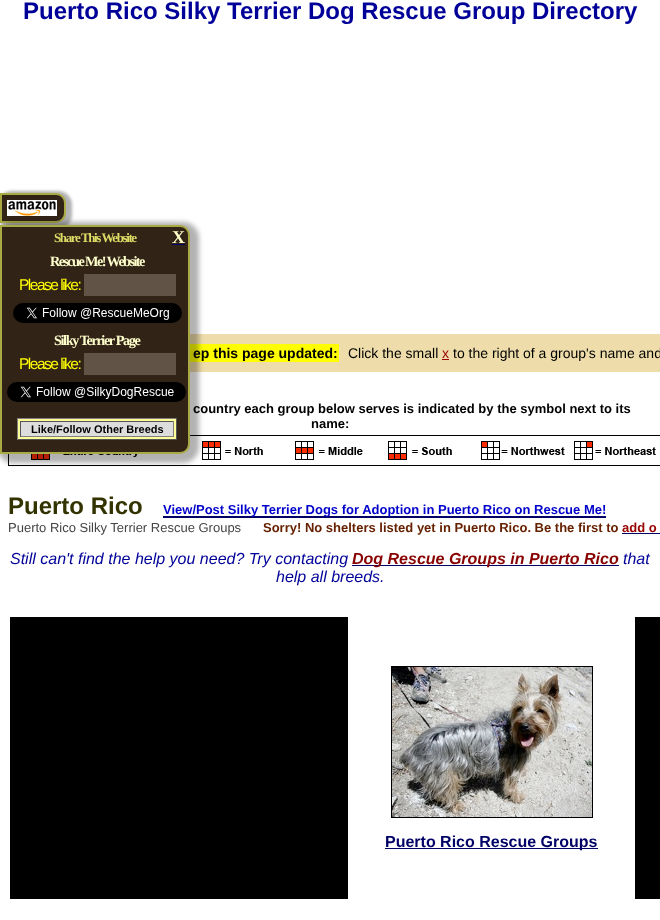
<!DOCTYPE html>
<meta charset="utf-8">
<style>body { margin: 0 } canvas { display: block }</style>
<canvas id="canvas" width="660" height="920"></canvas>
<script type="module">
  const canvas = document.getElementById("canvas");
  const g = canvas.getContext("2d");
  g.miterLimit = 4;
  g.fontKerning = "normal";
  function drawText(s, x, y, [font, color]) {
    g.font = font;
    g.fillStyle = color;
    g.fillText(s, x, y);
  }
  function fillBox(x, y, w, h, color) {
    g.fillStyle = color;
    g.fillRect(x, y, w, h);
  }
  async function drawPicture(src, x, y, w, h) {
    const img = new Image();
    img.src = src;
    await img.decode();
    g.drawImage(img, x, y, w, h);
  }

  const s1 = ["bold 24px Liberation Sans", "#000099"];
  const s2 = ["bold 14px Liberation Sans", "#000000"];
  const s3 = ["14px Liberation Sans", "#000000"];
  const s4 = ["14px Liberation Sans", "#990000"];
  const s5 = ["bold 13px Liberation Sans", "#000000"];
  const s6 = ["bold 24px Liberation Sans", "#333300"];
  const s7 = ["bold 13px Liberation Sans", "#0000CC"];
  const s8 = ["13px Liberation Sans", "#444444"];
  const s9 = ["bold 13px Liberation Sans", "#662200"];
  const s10 = ["bold 13px Liberation Sans", "#990000"];
  const s11 = ["italic 16px Liberation Sans", "#000099"];
  const s12 = ["italic bold 16px Liberation Sans", "#880000"];
  const s13 = ["bold 16px Liberation Sans", "#000066"];
  const s14 = ["bold 13px Liberation Serif", "#DDDD66"];
  const s15 = ["bold 18px Liberation Serif", "#FFFFCC"];
  const s16 = ["bold 14.25px Liberation Serif", "#FFFFCC"];
  const s17 = ["15.5px Liberation Sans", "#FFFF00"];
  const s18 = ["bold 11px Liberation Sans", "#000000"];

  fillBox(0, 0, 660, 920, "#FFFFFF");
  drawText("Puerto Rico Silky Terrier Dog Rescue Group Directory", 23, 19, s1);
  fillBox(190, 334, 470, 38, "#EEDDAA");
  fillBox(190, 344, 149, 18, "#FFFF00");
  drawText("ep this page updated:", 193, 358, s2);
  drawText("Click the small", 348, 358, s3);
  drawText("x", 442, 358, s4);
  fillBox(442, 359, 7, 1, "#990000");
  drawText("to the right of a group's name and", 453, 358, s3);
  drawText("country each group below serves is indicated by the symbol next to its", 193, 413, s5);
  drawText("name:", 311, 428, s5);
  await drawPicture("pic1.png", 8, 435, 652, 31);
  drawText("Puerto Rico", 8, 514, s6);
  fillBox(163, 516, 443, 2, "#000066");
  drawText("View/Post Silky Terrier Dogs for Adoption in Puerto Rico on Rescue Me!", 163, 514, s7);
  drawText("Puerto Rico Silky Terrier Rescue Groups", 8, 532, s8);
  drawText("Sorry! No shelters listed yet in Puerto Rico. Be the first to", 263, 532, s9);
  drawText("add o", 622, 532, s10);
  fillBox(622, 533, 38, 1, "#000066");
  drawText("Still can't find the help you need? Try contacting", 10, 564, s11);
  fillBox(352, 565, 267, 1, "#000066");
  drawText("Dog Rescue Groups in Puerto Rico", 352, 564, s12);
  drawText("that", 623, 564, s11);
  drawText("help all breeds.", 276, 582, s11);
  fillBox(10, 617, 338, 282, "#000000");
  g.strokeStyle = "#000000";
  g.strokeRect(391.5, 666.5, 201, 151);
  await drawPicture("pic2.png", 392, 667, 200, 150);
  fillBox(385, 848, 213, 1, "#000066");
  drawText("Puerto Rico Rescue Groups", 385, 847, s13);
  fillBox(635, 617, 25, 282, "#000000");
  g.fillStyle = "rgba(0, 0, 0, 0.3)";
  g.filter = "blur(1.5px)";
  g.beginPath();
  g.roundRect(-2, 191, 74, 38, 14);
  g.fill();
  g.filter = "none";
  g.fillStyle = "#322317";
  g.beginPath();
  g.roundRect(1, 194, 64, 28, [0, 9, 9, 0]);
  g.fill();
  g.strokeStyle = "#AAAA44";
  g.lineWidth = 2;
  g.stroke();
  await drawPicture("pic3.png", 7, 200, 50, 16);
  g.fillStyle = "rgba(0, 0, 0, 0.3)";
  g.filter = "blur(2.5px)";
  g.beginPath();
  g.roundRect(-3, 222, 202, 241, 16);
  g.fill();
  g.filter = "none";
  g.fillStyle = "#322317";
  g.beginPath();
  g.roundRect(1, 226, 188, 227, [0, 9, 9, 0]);
  g.fill();
  g.stroke();
  g.letterSpacing = "-1.4px";
  drawText("Share This Website", 54, 242, s14);
  g.letterSpacing = "0px";
  drawText("X", 172, 243, s15);
  fillBox(172, 244, 13, 1, "#000066");
  g.letterSpacing = "-1.6px";
  drawText("Rescue Me! Website", 50, 266, s16);
  g.letterSpacing = "-1.5px";
  drawText("Please like:", 19, 290, s17);
  fillBox(84, 274, 92, 22, "#625347");
  await drawPicture("pic4.png", 13, 303, 169, 20);
  g.letterSpacing = "-1.4px";
  drawText("Silky Terrier Page", 54, 345, s16);
  g.letterSpacing = "-1.5px";
  drawText("Please like:", 19, 369, s17);
  fillBox(84, 353, 92, 22, "#625347");
  await drawPicture("pic5.png", 7, 382, 179, 20);
  fillBox(18, 419, 158, 20, "#FFFF99");
  fillBox(17, 418, 160, 1, "#808080");
  fillBox(176, 418, 1, 22, "#555555");
  fillBox(17, 439, 160, 1, "#555555");
  fillBox(17, 418, 1, 22, "#808080");
  fillBox(21, 422, 152, 14, "#DDDDDD");
  fillBox(20, 421, 154, 1, "#555555");
  fillBox(173, 421, 1, 16, "#808080");
  fillBox(20, 436, 154, 1, "#808080");
  fillBox(20, 421, 1, 16, "#555555");
  g.letterSpacing = "0px";
  drawText("Like/Follow Other Breeds", 31, 433, s18);
</script>
